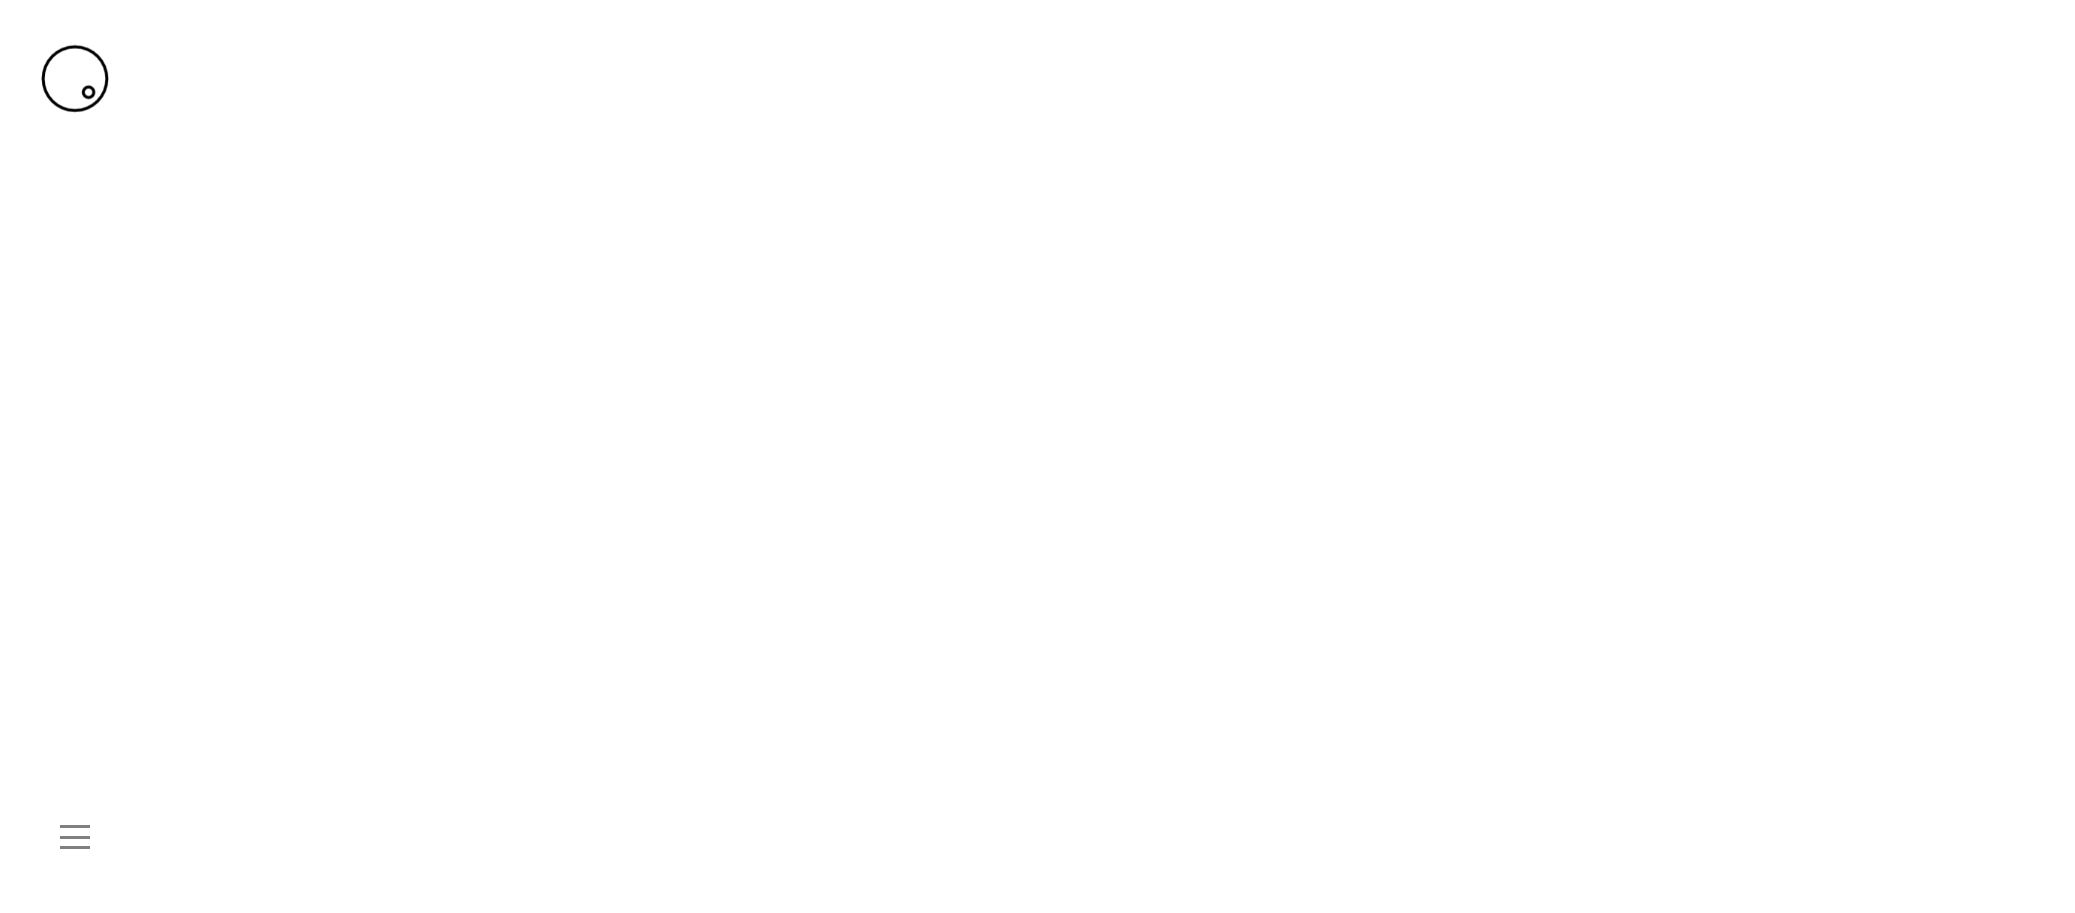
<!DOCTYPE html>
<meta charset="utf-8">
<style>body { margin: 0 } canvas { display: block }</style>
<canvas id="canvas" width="2075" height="913"></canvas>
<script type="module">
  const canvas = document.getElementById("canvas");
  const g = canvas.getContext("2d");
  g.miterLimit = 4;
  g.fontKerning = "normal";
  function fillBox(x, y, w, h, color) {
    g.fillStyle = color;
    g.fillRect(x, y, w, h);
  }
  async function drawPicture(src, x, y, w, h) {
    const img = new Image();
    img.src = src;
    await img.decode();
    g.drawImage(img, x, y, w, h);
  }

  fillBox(0, 0, 2075, 913, "#FFFFFF");
  await drawPicture("pic1.png", 41, 44, 68, 69);
  fillBox(60, 836, 30, 3, "#808080");
  fillBox(60, 825, 30, 3, "#808080");
  fillBox(60, 846, 30, 3, "#808080");
</script>
